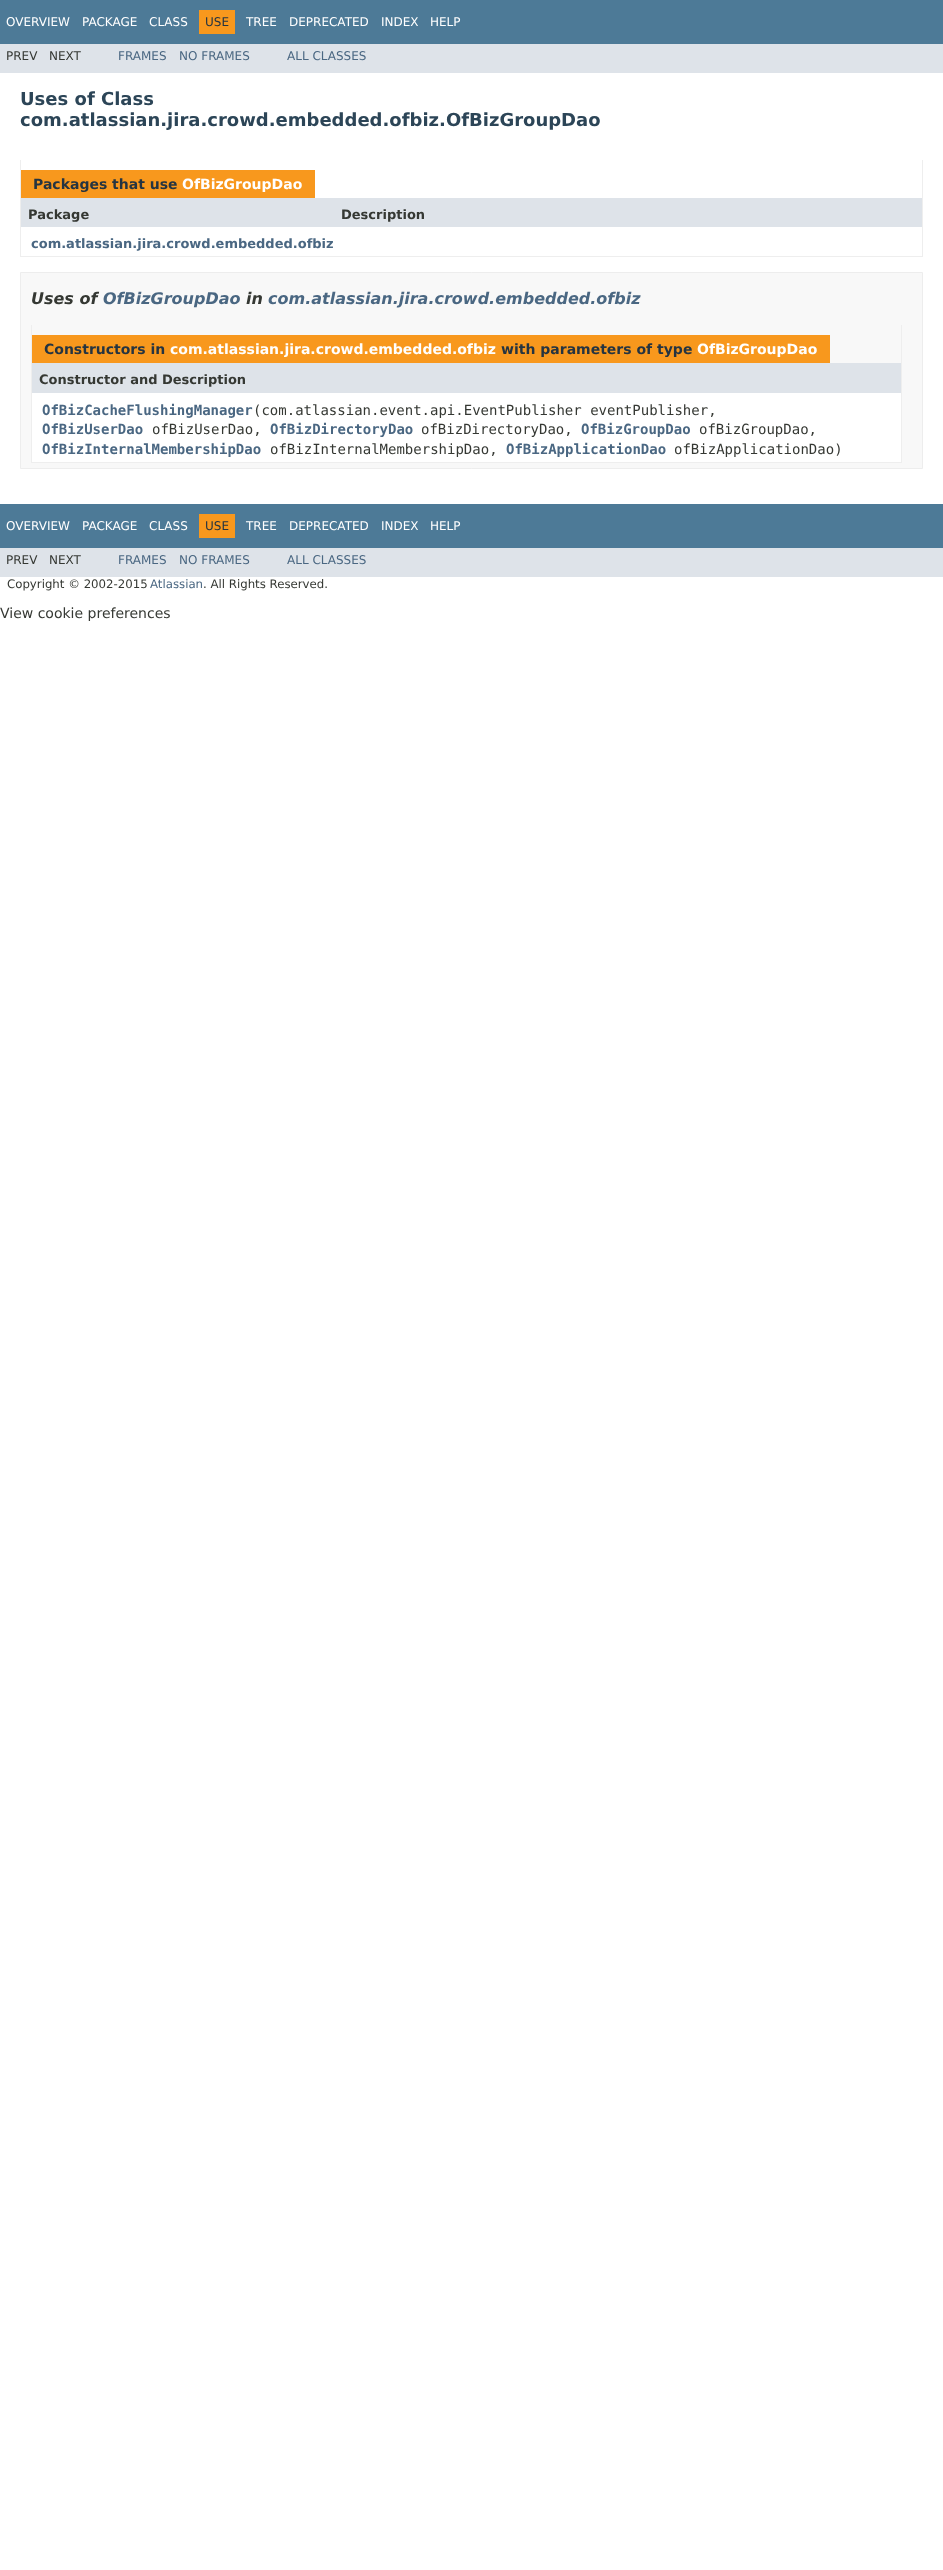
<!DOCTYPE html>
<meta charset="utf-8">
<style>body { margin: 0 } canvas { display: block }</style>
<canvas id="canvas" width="943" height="2570"></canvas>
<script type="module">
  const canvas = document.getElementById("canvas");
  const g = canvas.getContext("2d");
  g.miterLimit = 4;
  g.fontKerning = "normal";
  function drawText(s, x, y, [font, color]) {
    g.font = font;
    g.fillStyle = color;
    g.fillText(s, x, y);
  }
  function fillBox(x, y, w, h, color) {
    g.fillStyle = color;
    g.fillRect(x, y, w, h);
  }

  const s1 = ["12px DejaVu Sans", "#FFFFFF"];
  const s2 = ["12px DejaVu Sans", "#253441"];
  const s3 = ["12px DejaVu Sans", "#353833"];
  const s4 = ["12px DejaVu Sans", "#4A6782"];
  const s5 = ["bold 18px DejaVu Sans", "#2C4557"];
  const s6 = ["bold 14px DejaVu Sans", "#253441"];
  const s7 = ["bold 14px DejaVu Sans", "#FFFFFF"];
  const s8 = ["bold 13px DejaVu Sans", "#353833"];
  const s9 = ["bold 13px DejaVu Sans", "#4A6782"];
  const s10 = ["italic bold 16px DejaVu Sans", "#353833"];
  const s11 = ["italic bold 16px DejaVu Sans", "#4A6782"];
  const s12 = ["bold 14px DejaVu Sans Mono", "#4A6782"];
  const s13 = ["14px DejaVu Sans Mono", "#353833"];
  const s14 = ["11.75px DejaVu Sans", "#353833"];
  const s15 = ["11.75px DejaVu Sans", "#4A6782"];
  const s16 = ["14px DejaVu Sans", "#353833"];

  fillBox(0, 0, 943, 2570, "#FFFFFF");
  fillBox(0, 0, 943, 44, "#4D7A97");
  drawText("OVERVIEW", 6, 26, s1);
  drawText("PACKAGE", 82, 26, s1);
  drawText("CLASS", 149, 26, s1);
  fillBox(199, 10, 36, 24, "#F8981D");
  drawText("USE", 205, 26, s2);
  drawText("TREE", 246, 26, s1);
  drawText("DEPRECATED", 289, 26, s1);
  drawText("INDEX", 381, 26, s1);
  drawText("HELP", 430, 26, s1);
  fillBox(0, 44, 943, 29, "#DEE3E9");
  drawText("PREV", 6, 60, s3);
  drawText("NEXT", 49, 60, s3);
  drawText("FRAMES", 118, 60, s4);
  drawText("NO FRAMES", 179, 60, s4);
  drawText("ALL CLASSES", 287, 60, s4);
  drawText("Uses of Class", 20, 105, s5);
  drawText("com.atlassian.jira.crowd.embedded.ofbiz.OfBizGroupDao", 20, 126, s5);
  fillBox(922, 160, 1, 97, "#EEEEEE");
  fillBox(20, 256, 903, 1, "#EEEEEE");
  fillBox(20, 160, 1, 97, "#EEEEEE");
  fillBox(21, 170, 294, 28, "#F8981D");
  drawText("Packages that use", 33, 189, s6);
  drawText("OfBizGroupDao", 182, 189, s7);
  fillBox(21, 198, 901, 29, "#DEE3E9");
  drawText("Package", 28, 219, s8);
  drawText("Description", 341, 219, s8);
  drawText("com.atlassian.jira.crowd.embedded.ofbiz", 31, 248, s9);
  g.fillStyle = "#F8F8F8";
  g.beginPath();
  g.rect(20.5, 272.5, 902, 196);
  g.fill();
  g.strokeStyle = "#EDEDED";
  g.stroke();
  drawText("Uses of", 31, 304, s10);
  drawText("OfBizGroupDao", 103, 304, s11);
  drawText("in", 246, 304, s10);
  drawText("com.atlassian.jira.crowd.embedded.ofbiz", 268, 304, s11);
  fillBox(901, 325, 1, 138, "#EEEEEE");
  fillBox(31, 462, 871, 1, "#EEEEEE");
  fillBox(31, 325, 1, 138, "#EEEEEE");
  fillBox(32, 335, 798, 28, "#F8981D");
  drawText("Constructors in", 44, 354, s6);
  drawText("com.atlassian.jira.crowd.embedded.ofbiz", 170, 354, s7);
  drawText("with parameters of type", 501, 354, s6);
  drawText("OfBizGroupDao", 697, 354, s7);
  fillBox(32, 363, 869, 30, "#DEE3E9");
  drawText("Constructor and Description", 39, 384, s8);
  fillBox(32, 393, 869, 69, "#FFFFFF");
  drawText("OfBizCacheFlushingManager", 42, 415, s12);
  drawText("(com.atlassian.event.api.EventPublisher eventPublisher,", 253, 415, s13);
  drawText("OfBizUserDao", 42, 434, s12);
  drawText("ofBizUserDao,", 152, 434, s13);
  drawText("OfBizDirectoryDao", 270, 434, s12);
  drawText("ofBizDirectoryDao,", 421, 434, s13);
  drawText("OfBizGroupDao", 581, 434, s12);
  drawText("ofBizGroupDao,", 699, 434, s13);
  drawText("OfBizInternalMembershipDao", 42, 454, s12);
  drawText("ofBizInternalMembershipDao,", 270, 454, s13);
  drawText("OfBizApplicationDao", 506, 454, s12);
  drawText("ofBizApplicationDao)", 674, 454, s13);
  fillBox(0, 504, 943, 44, "#4D7A97");
  drawText("OVERVIEW", 6, 530, s1);
  drawText("PACKAGE", 82, 530, s1);
  drawText("CLASS", 149, 530, s1);
  fillBox(199, 514, 36, 24, "#F8981D");
  drawText("USE", 205, 530, s2);
  drawText("TREE", 246, 530, s1);
  drawText("DEPRECATED", 289, 530, s1);
  drawText("INDEX", 381, 530, s1);
  drawText("HELP", 430, 530, s1);
  fillBox(0, 548, 943, 29, "#DEE3E9");
  drawText("PREV", 6, 564, s3);
  drawText("NEXT", 49, 564, s3);
  drawText("FRAMES", 118, 564, s4);
  drawText("NO FRAMES", 179, 564, s4);
  drawText("ALL CLASSES", 287, 564, s4);
  drawText("Copyright © 2002-2015", 7, 588, s14);
  drawText("Atlassian", 150, 588, s15);
  drawText(". All Rights Reserved.", 203, 588, s14);
  drawText("View cookie preferences", 0, 618, s16);
</script>
